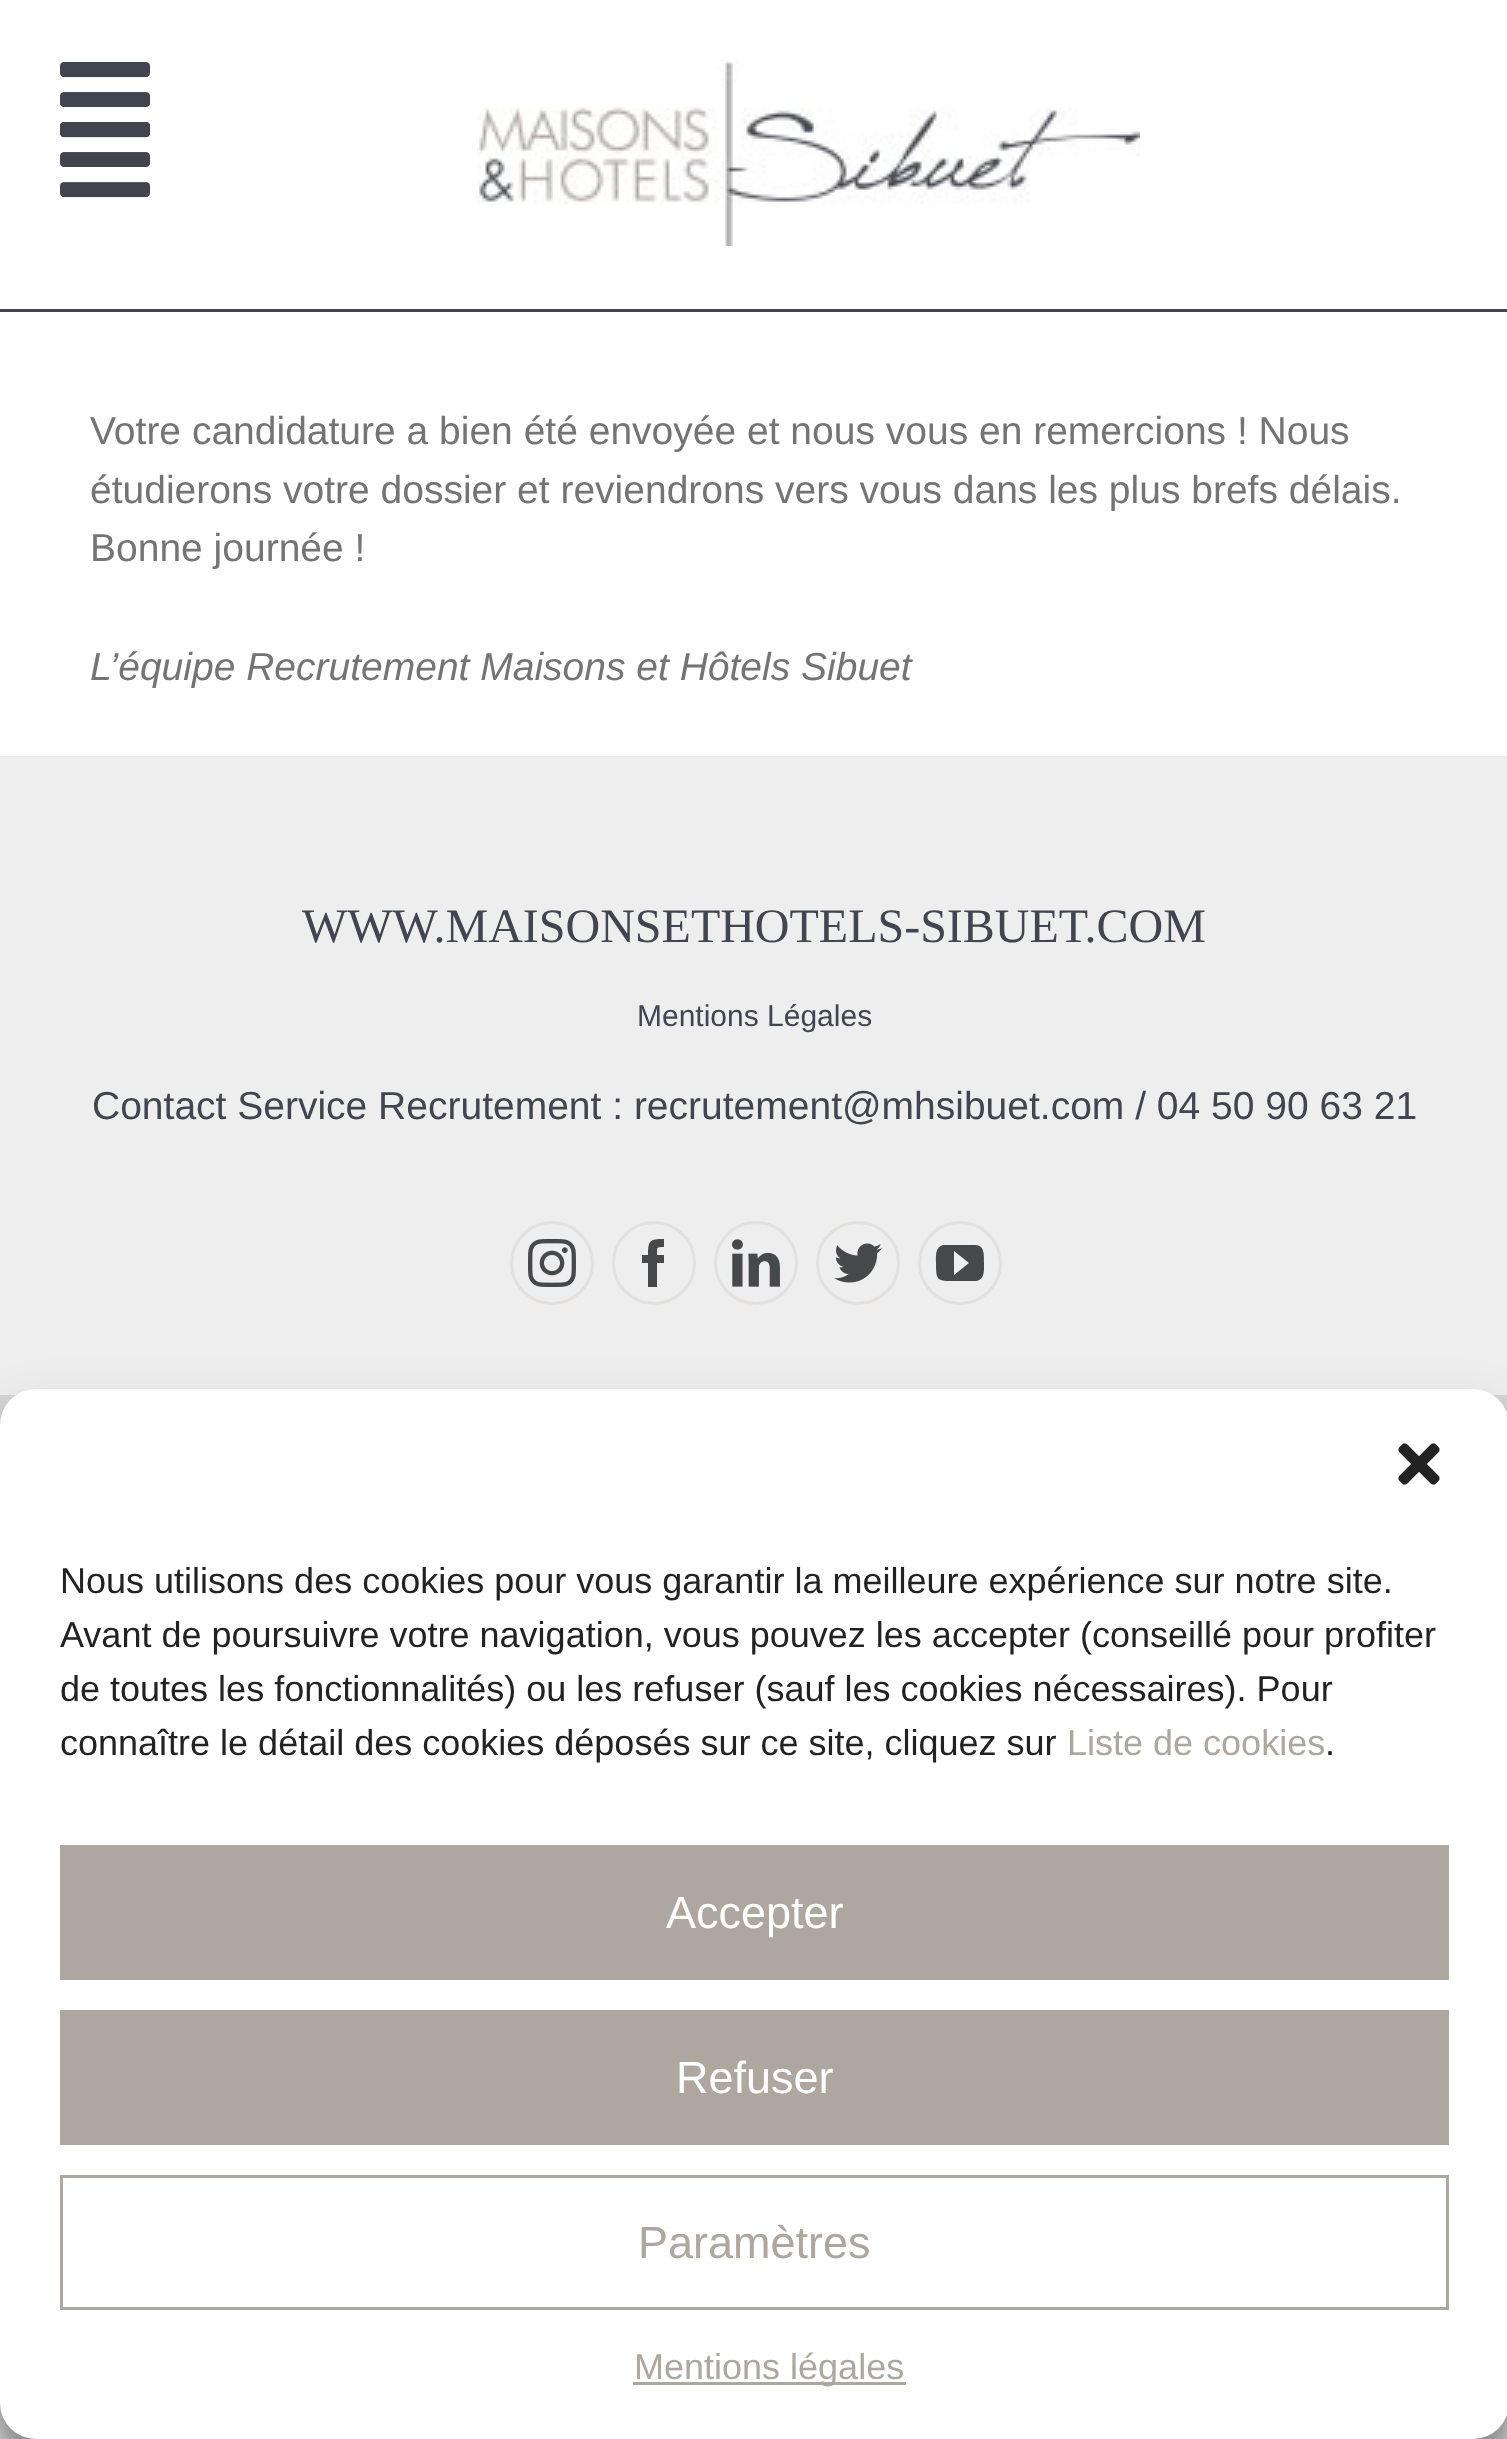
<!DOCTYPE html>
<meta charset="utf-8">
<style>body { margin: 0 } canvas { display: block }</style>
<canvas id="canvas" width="1507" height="2439"></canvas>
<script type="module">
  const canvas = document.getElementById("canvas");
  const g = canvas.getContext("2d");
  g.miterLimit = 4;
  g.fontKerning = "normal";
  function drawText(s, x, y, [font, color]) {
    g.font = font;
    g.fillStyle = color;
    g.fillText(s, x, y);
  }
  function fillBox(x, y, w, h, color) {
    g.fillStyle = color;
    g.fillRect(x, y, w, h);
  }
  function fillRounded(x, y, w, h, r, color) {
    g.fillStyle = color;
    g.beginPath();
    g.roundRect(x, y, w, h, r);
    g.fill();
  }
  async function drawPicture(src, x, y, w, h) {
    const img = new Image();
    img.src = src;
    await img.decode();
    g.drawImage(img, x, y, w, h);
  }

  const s1 = ["39px Liberation Sans", "#747474"];
  const s2 = ["italic 39px Liberation Sans", "#747474"];
  const s3 = ["48px Liberation Serif", "#42454F"];
  const s4 = ["30px Liberation Sans", "#42454F"];
  const s5 = ["39px Liberation Sans", "#42454F"];
  const s6 = ["36px Liberation Sans", "#222222"];
  const s7 = ["36px Liberation Sans", "#AEA79F"];
  const s8 = ["45px Liberation Sans", "#FFFFFF"];
  const s9 = ["45px Liberation Sans", "#AEA79F"];

  fillBox(0, 0, 1507, 2439, "#D7D6D6");
  fillBox(0, 0, 1507, 756, "#FFFFFF");
  fillBox(0, 309, 1507, 3, "#42454F");
  await drawPicture("pic1.png", 60, 122, 91, 76);
  await drawPicture("pic2.png", 476, 60, 664, 186);
  await drawPicture("pic3.png", 60, 62, 91, 76);
  drawText("Votre candidature a bien été envoyée et nous vous en remercions ! Nous", 90, 444, s1);
  drawText("étudierons votre dossier et reviendrons vers vous dans les plus brefs délais.", 90, 503, s1);
  drawText("Bonne journée !", 90, 561, s1);
  drawText("L’équipe Recrutement Maisons et Hôtels Sibuet", 90, 680, s2);
  fillBox(0, 756, 1507, 639, "#EEEEEE");
  drawText("WWW.MAISONSETHOTELS-SIBUET.COM", 302, 942, s3);
  drawText("Mentions Légales", 637, 1026, s4);
  drawText("Contact Service Recrutement : recrutement@mhsibuet.com / 04 50 90 63 21", 92, 1119, s5);
  g.beginPath();
  g.arc(552, 1263, 40.5, 0, Math.PI * 2);
  g.strokeStyle = "#E3E1E0";
  g.lineWidth = 3;
  g.stroke();
  await drawPicture("pic4.png", 528, 1239, 48, 48);
  g.beginPath();
  g.arc(654, 1263, 40.5, 0, Math.PI * 2);
  g.stroke();
  g.fillStyle = "#46494A";
  g.beginPath();
  g.moveTo(657, 1287);
  g.lineTo(648, 1287);
  g.lineTo(648, 1263);
  g.lineTo(642, 1263);
  g.lineTo(642, 1255);
  g.lineTo(648, 1255);
  g.bezierCurveTo(648, 1240, 650, 1239, 664, 1239);
  g.lineTo(664, 1247);
  g.bezierCurveTo(656, 1247, 657, 1247, 657, 1255);
  g.lineTo(664, 1255);
  g.lineTo(664, 1263);
  g.lineTo(657, 1263);
  g.closePath();
  g.fill();
  g.beginPath();
  g.arc(756, 1263, 40.5, 0, Math.PI * 2);
  g.stroke();
  await drawPicture("pic5.png", 732, 1239, 48, 48);
  g.beginPath();
  g.arc(858, 1263, 40.5, 0, Math.PI * 2);
  g.stroke();
  await drawPicture("pic6.png", 834, 1243, 48, 40);
  g.beginPath();
  g.arc(960, 1263, 40.5, 0, Math.PI * 2);
  g.stroke();
  g.beginPath();
  g.moveTo(975, 1245);
  g.lineTo(944, 1245);
  g.bezierCurveTo(935, 1246, 936, 1256, 936, 1263);
  g.bezierCurveTo(936, 1281, 937, 1281, 955, 1281);
  g.lineTo(976, 1281);
  g.bezierCurveTo(985, 1280, 984, 1270, 984, 1263);
  g.bezierCurveTo(984, 1256, 985, 1245, 975, 1245);
  g.closePath();
  g.moveTo(954, 1275);
  g.lineTo(954, 1251);
  g.lineTo(969, 1263);
  g.closePath();
  g.fill();
  g.fillStyle = "rgba(0, 0, 0, 0.23)";
  g.filter = "blur(9px)";
  g.beginPath();
  g.roundRect(0, 1407, 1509, 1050, 36);
  g.fill();
  g.filter = "none";
  g.fillStyle = "rgba(0, 0, 0, 0.19)";
  g.filter = "blur(30px)";
  g.beginPath();
  g.roundRect(0, 1419, 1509, 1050, 36);
  g.fill();
  g.filter = "none";
  fillRounded(0, 1389, 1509, 1050, 36, "#FFFFFF");
  await drawPicture("pic7.png", 1398, 1443, 42, 42);
  drawText("Nous utilisons des cookies pour vous garantir la meilleure expérience sur notre site.", 60, 1593, s6);
  drawText("Avant de poursuivre votre navigation, vous pouvez les accepter (conseillé pour profiter", 60, 1647, s6);
  drawText("de toutes les fonctionnalités) ou les refuser (sauf les cookies nécessaires). Pour", 60, 1701, s6);
  drawText("connaître le détail des cookies déposés sur ce site, cliquez sur", 60, 1755, s6);
  drawText("Liste de cookies", 1067, 1755, s7);
  drawText(".", 1325, 1755, s6);
  fillBox(60, 1845, 1389, 135, "#AEA79F");
  drawText("Accepter", 666, 1928, s8);
  fillBox(60, 2010, 1389, 135, "#AEA79F");
  drawText("Refuser", 676, 2093, s8);
  g.strokeStyle = "#AEA79F";
  g.strokeRect(61.5, 2176.5, 1386, 132);
  drawText("Paramètres", 638, 2258, s9);
  fillBox(633, 2382, 273, 3, "#AEA79F");
  drawText("Mentions légales", 634, 2379, s7);
</script>
